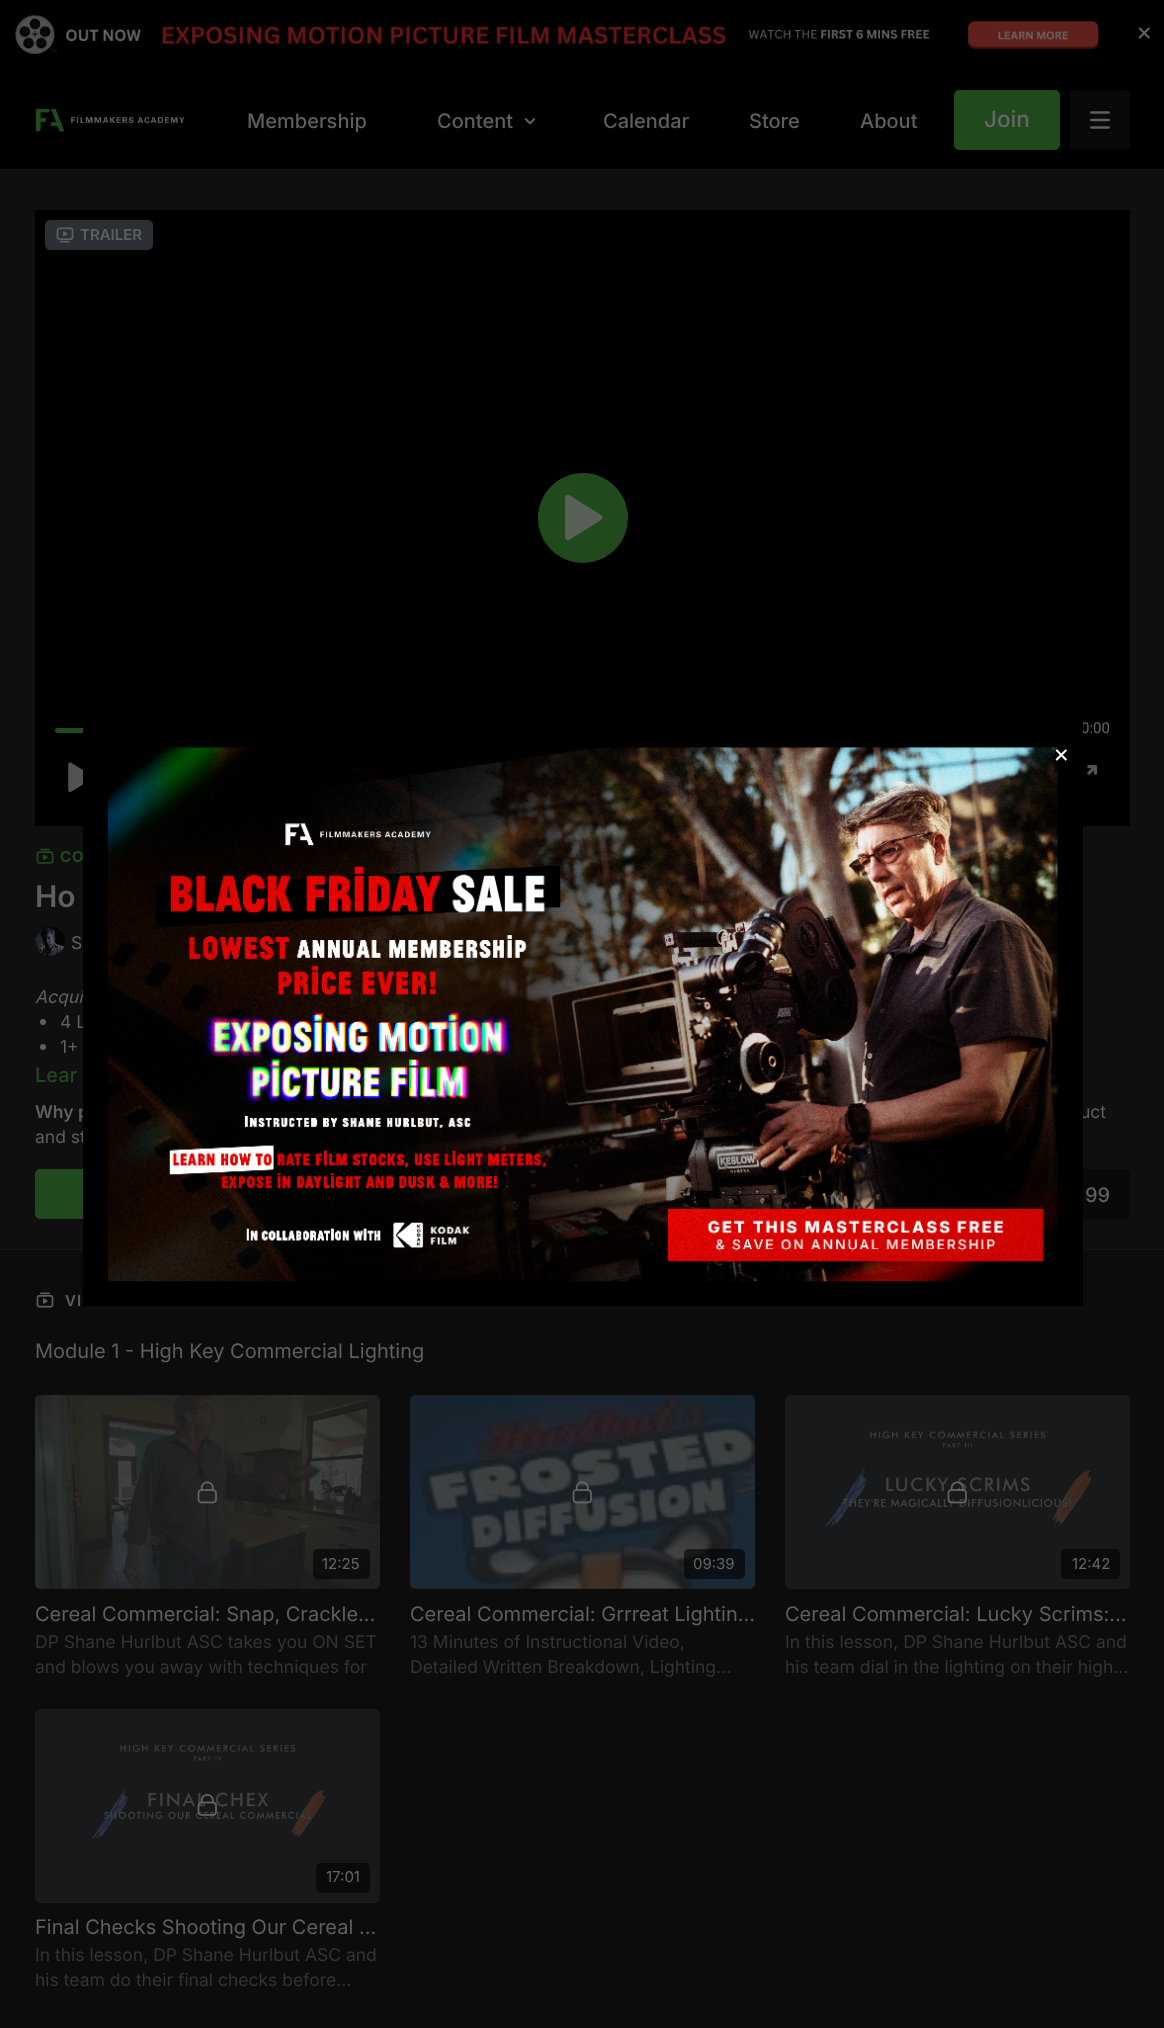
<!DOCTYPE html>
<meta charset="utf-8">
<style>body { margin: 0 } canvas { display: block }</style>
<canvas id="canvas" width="1164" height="2028"></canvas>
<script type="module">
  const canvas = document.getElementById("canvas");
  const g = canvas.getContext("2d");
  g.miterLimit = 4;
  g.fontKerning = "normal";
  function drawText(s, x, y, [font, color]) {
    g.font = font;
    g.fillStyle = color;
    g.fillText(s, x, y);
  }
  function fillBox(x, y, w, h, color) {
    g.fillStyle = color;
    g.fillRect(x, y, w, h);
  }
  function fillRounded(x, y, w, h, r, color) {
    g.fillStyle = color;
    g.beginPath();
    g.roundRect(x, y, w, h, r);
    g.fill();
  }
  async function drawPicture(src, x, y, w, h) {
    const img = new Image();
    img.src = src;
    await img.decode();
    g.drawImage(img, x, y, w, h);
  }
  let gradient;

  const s1 = ["25px Inter", "#666666"];
  const s2 = ["500 20px Inter", "#5F5F5F"];
  const s3 = ["500 22.5px Inter", "#666666"];
  const s4 = ["15px Roboto", "#666666"];
  const s5 = ["italic 17.5px Inter", "#5F5F5F"];
  const s6 = ["17.5px Inter", "#5F5F5F"];
  const s7 = ["600 17.5px Inter", "#5F5F5F"];
  const s8 = ["25px Inter", "#FFFFFF"];
  const s9 = ["600 15px Inter", "#5F5F5F"];
  const s10 = ["bold 15px Inter", "#204A1D"];
  const s11 = ["600 30px Inter", "#5F5F5F"];
  const s12 = ["500 20px Inter", "#204A1D"];
  const s13 = ["20px Inter", "#5F5F5F"];
  const s14 = ["15px Inter", "#666666"];
  const s15 = ["17.5px Inter", "#343434"];

  fillBox(0, 0, 1164, 2028, "#0F0F0F");
  fillBox(0, 0, 1164, 169, "#000000");
  await drawPicture("pic1.png", 15, 15, 1084, 40);
  drawText("×", 1136, 40, s1);
  fillBox(0, 169, 1164, 1, "#161616");
  await drawPicture("pic2.png", 35, 108, 150, 24);
  drawText("Membership", 247, 128, s2);
  drawText("Content", 437, 128, s2);
  await drawPicture("pic3.png", 524, 118, 12, 7);
  drawText("Calendar", 603, 128, s2);
  drawText("Store", 749, 128, s2);
  drawText("About", 860, 128, s2);
  fillRounded(954, 90, 106, 60, 5, "#204A1D");
  drawText("Join", 984, 127, s3);
  fillRounded(1070, 90, 60, 60, 5, "#090909");
  await drawPicture("pic4.png", 1090, 111, 20, 18);
  fillBox(35, 210, 1095, 616, "#000000");
  gradient = g.createLinearGradient(55, 733, 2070, 733);
  gradient.addColorStop(0.35, "#204A1D");
  gradient.addColorStop(0.37, "#000000");
  gradient.addColorStop(0.4, "#000000");
  gradient.addColorStop(0.46, "#204A1D");
  gradient.addColorStop(1, "#204A1D");
  g.fillStyle = gradient;
  g.beginPath();
  g.roundRect(55, 728, 1008, 5, 2.5);
  g.fill();
  drawText("0:00", 1081, 733, s4);
  drawText("Acqui", 35, 1003, s5);
  drawText("4 L", 60, 1028, s6);
  drawText("Why p", 35, 1118, s7);
  drawText("uct", 1080, 1118, s6);
  drawText("and st", 35, 1143, s6);
  fillRounded(35, 1169, 939, 50, 5, "#204A1D");
  fillRounded(984, 1169, 146, 50, 5, "#090909");
  fillBox(0, 1250, 1164, 778, "#0C0C0C");
  fillBox(0, 1249, 1164, 1, "#161616");
  fillBox(83, 723, 1000, 583, "#000000");
  await drawPicture("pic5.png", 108, 747, 950, 535);
  fillBox(1054, 747, 4, 26, "rgba(0, 0, 0, 0.6)");
  drawText("×", 1053, 762, s8);
  fillRounded(45, 220, 108, 30, 5, "#2B2E33");
  await drawPicture("pic6.png", 56, 227, 18, 16);
  drawText("TRAILER", 80, 240, s9);
  g.fillStyle = "#204A1D";
  g.beginPath();
  g.arc(583, 518, 45, 0, Math.PI * 2);
  g.fill();
  g.fillStyle = "#586057";
  g.beginPath();
  g.moveTo(569, 495);
  g.bezierCurveTo(567, 494, 565, 496, 565, 498);
  g.lineTo(565, 537);
  g.bezierCurveTo(565, 539, 567, 541, 569, 540);
  g.lineTo(601, 520);
  g.bezierCurveTo(603, 519, 603, 516, 601, 515);
  g.closePath();
  g.fill();
  await drawPicture("pic7.png", 68, 762, 15, 30);
  await drawPicture("pic8.png", 1087, 764, 11, 11);
  await drawPicture("pic9.png", 36, 848, 18, 16);
  g.letterSpacing = "1px";
  drawText("CO", 60, 862, s10);
  g.letterSpacing = "0px";
  drawText("Ho", 35, 907, s11);
  await drawPicture("pic10.png", 35, 926, 30, 30);
  drawText("S", 71, 949, s6);
  g.beginPath();
  g.arc(43, 1022, 3, 0, Math.PI * 2);
  g.fill();
  g.beginPath();
  g.arc(43, 1047, 3, 0, Math.PI * 2);
  g.fill();
  drawText("1+", 60, 1053, s6);
  drawText("Lear", 35, 1082, s12);
  drawText("99", 1085, 1202, s2);
  await drawPicture("pic11.png", 36, 1292, 18, 16);
  g.letterSpacing = "1px";
  drawText("VI", 65, 1306, s9);
  g.letterSpacing = "0px";
  drawText("Module 1 - High Key Commercial Lighting", 35, 1358, s13);
  await drawPicture("pic12.png", 35, 1395, 345, 194);
  fillRounded(35, 1395, 345, 194, 5, "rgba(39, 41, 44, 0.6)");
  await drawPicture("pic13.png", 197, 1481, 20, 23);
  fillRounded(313, 1549, 57, 30, 5, "rgba(0, 0, 0, 0.6)");
  drawText("12:25", 322, 1569, s14);
  drawText("Cereal Commercial: Snap, Crackle…", 35, 1621, s13);
  drawText("DP Shane Hurlbut ASC takes you ON SET", 35, 1648, s15);
  drawText("and blows you away with techniques for", 35, 1673, s15);
  await drawPicture("pic14.png", 410, 1395, 345, 194);
  fillRounded(410, 1395, 345, 194, 5, "rgba(39, 41, 44, 0.6)");
  await drawPicture("pic15.png", 572, 1481, 20, 23);
  fillRounded(684, 1549, 61, 30, 5, "rgba(0, 0, 0, 0.6)");
  drawText("09:39", 693, 1569, s14);
  drawText("Cereal Commercial: Grrreat Lightin…", 410, 1621, s13);
  drawText("13 Minutes of Instructional Video,", 410, 1648, s15);
  drawText("Detailed Written Breakdown, Lighting…", 410, 1673, s15);
  await drawPicture("pic16.png", 785, 1395, 345, 194);
  fillRounded(785, 1395, 345, 194, 5, "rgba(39, 41, 44, 0.6)");
  await drawPicture("pic17.png", 947, 1481, 20, 23);
  fillRounded(1061, 1549, 59, 30, 5, "#0A0A0A");
  drawText("12:42", 1072, 1569, s14);
  drawText("Cereal Commercial: Lucky Scrims:…", 785, 1621, s13);
  drawText("In this lesson, DP Shane Hurlbut ASC and", 785, 1648, s15);
  drawText("his team dial in the lighting on their high…", 785, 1673, s15);
  await drawPicture("pic18.png", 35, 1709, 345, 194);
  fillRounded(35, 1709, 345, 194, 5, "rgba(39, 41, 44, 0.6)");
  await drawPicture("pic19.png", 197, 1794, 20, 22);
  fillRounded(316, 1863, 54, 30, 5, "#0A0A0A");
  drawText("17:01", 326, 1882, s14);
  drawText("Final Checks Shooting Our Cereal …", 35, 1934, s13);
  drawText("In this lesson, DP Shane Hurlbut ASC and", 35, 1961, s15);
  drawText("his team do their final checks before…", 35, 1986, s15);
</script>
